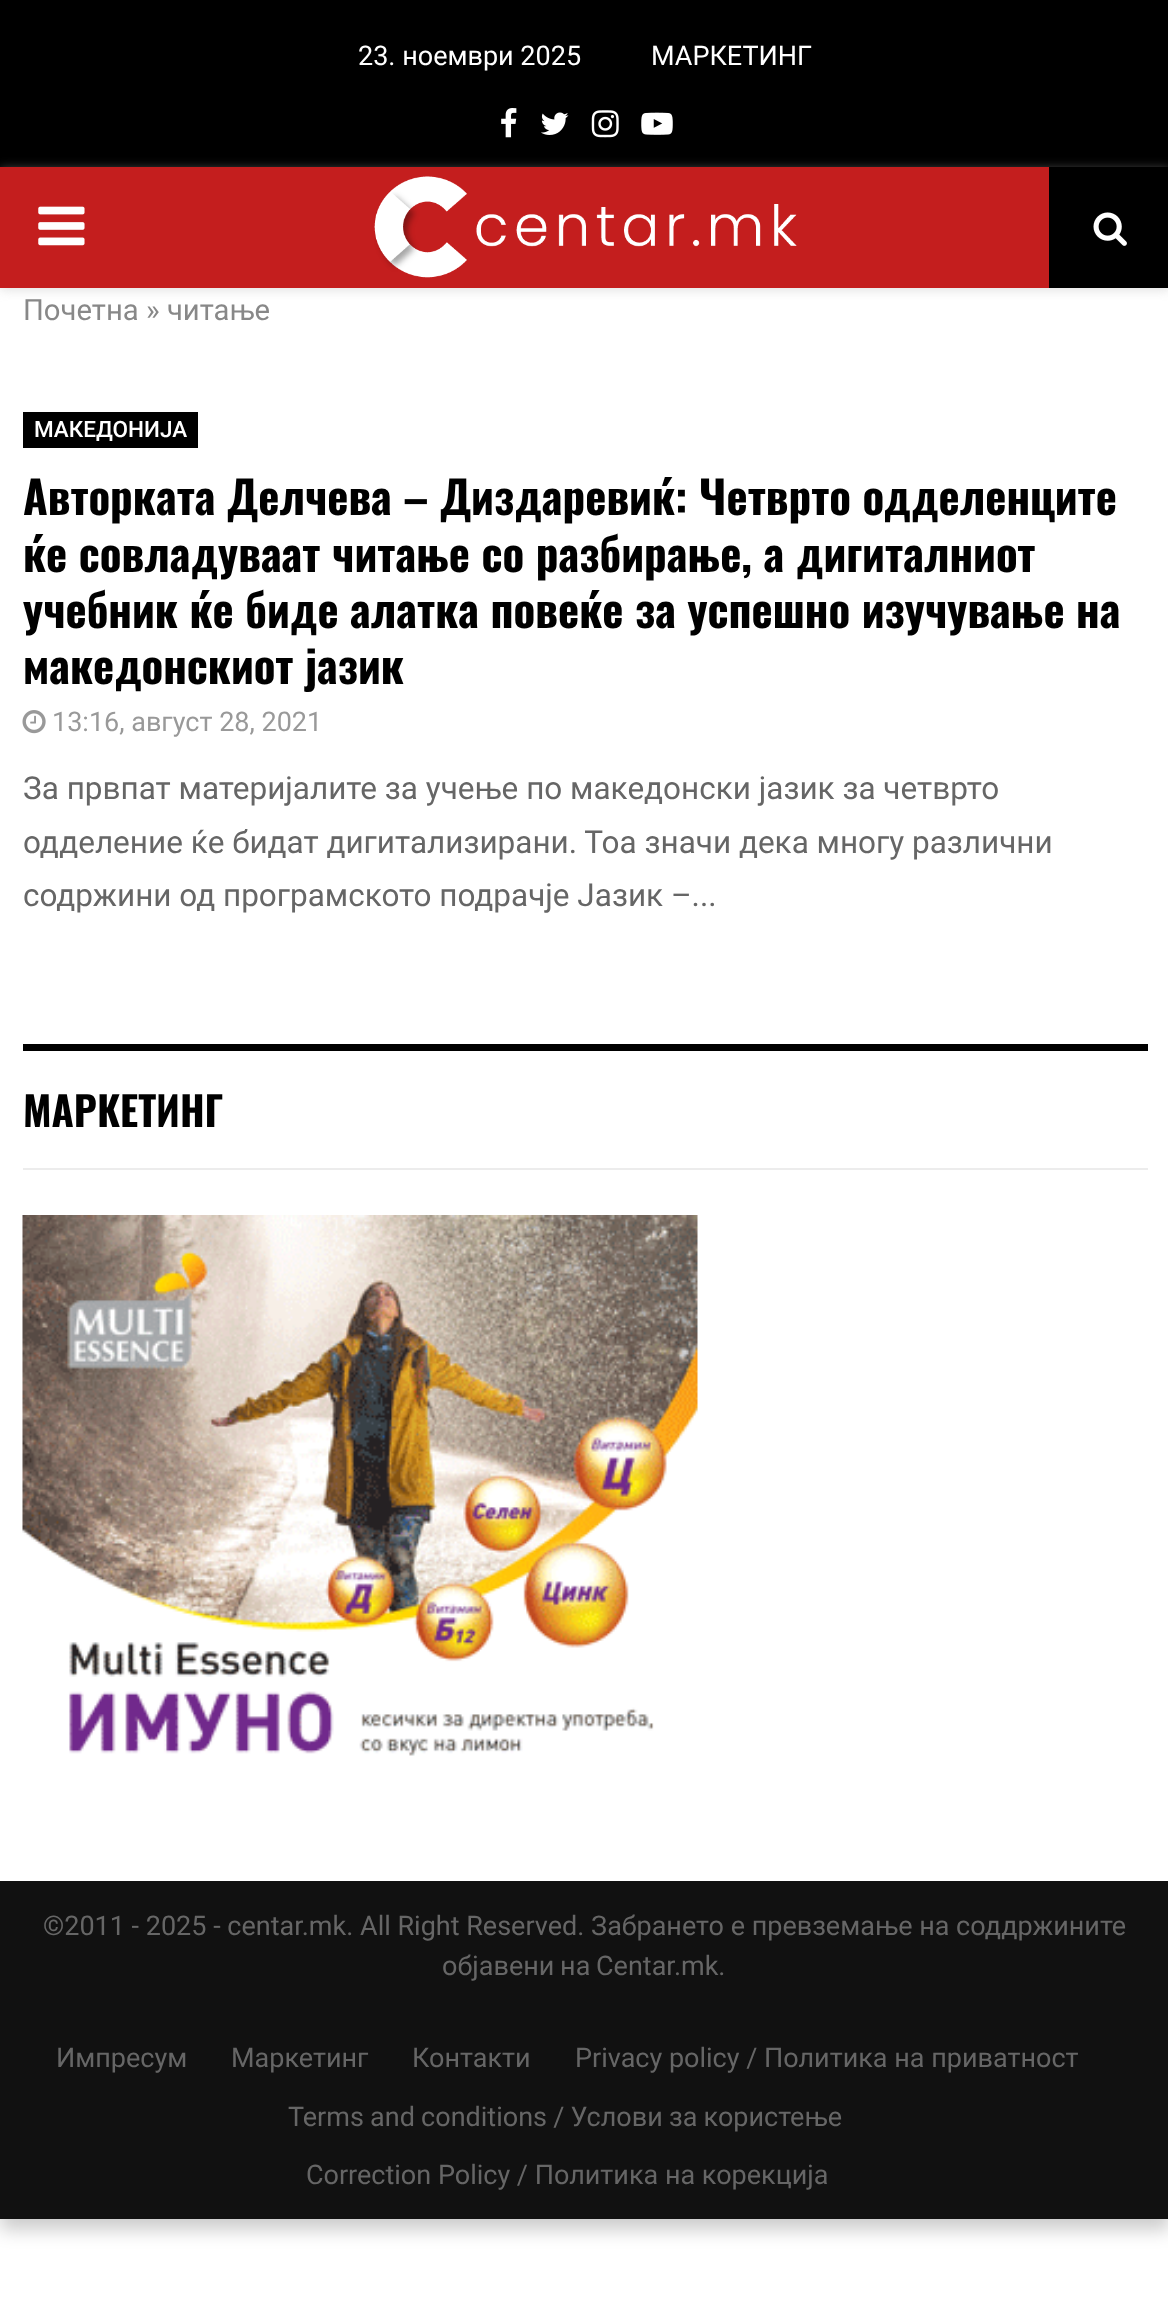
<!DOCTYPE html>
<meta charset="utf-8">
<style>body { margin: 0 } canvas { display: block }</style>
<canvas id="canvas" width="1168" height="2304"></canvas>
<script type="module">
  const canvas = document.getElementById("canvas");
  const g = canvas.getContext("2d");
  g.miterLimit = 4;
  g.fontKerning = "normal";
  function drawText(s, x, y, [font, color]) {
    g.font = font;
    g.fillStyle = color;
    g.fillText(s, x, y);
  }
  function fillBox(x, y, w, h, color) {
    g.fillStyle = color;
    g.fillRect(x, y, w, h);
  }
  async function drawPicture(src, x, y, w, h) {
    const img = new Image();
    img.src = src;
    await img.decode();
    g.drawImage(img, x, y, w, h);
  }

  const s1 = ["27px Roboto", "#FFFFFF"];
  const s2 = ["29.25px Roboto", "#888888"];
  const s3 = ["500 22.5px Roboto", "#FFFFFF"];
  const s4 = ["bold 45px Oswald", "#000000"];
  const s5 = ["27px Roboto", "#999999"];
  const s6 = ["31.5px Roboto", "#666666"];
  const s7 = ["bold 40.5px Oswald", "#000000"];
  const s8 = ["27px Roboto", "#666666"];

  fillBox(0, 0, 1168, 2304, "#FFFFFF");
  g.fillStyle = "rgba(0, 0, 0, 0.2)";
  g.filter = "blur(9px)";
  g.beginPath();
  g.rect(0, 11, 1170, 2219);
  g.fill();
  g.filter = "none";
  fillBox(0, 288, 1168, 1593, "#FFFFFF");
  fillBox(0, 0, 1168, 167, "#000000");
  drawText("23. ноември 2025", 358, 65, s1);
  drawText("МАРКЕТИНГ", 651, 65, s1);
  await drawPicture("pic1.png", 501, 108, 16, 30);
  await drawPicture("pic2.png", 541, 112, 28, 23);
  await drawPicture("pic3.png", 591, 110, 28, 28);
  await drawPicture("pic4.png", 641, 112, 32, 23);
  g.fillStyle = "rgba(190, 190, 190, 0.46)";
  g.filter = "blur(5.5px)";
  g.beginPath();
  g.rect(0, 169, 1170, 121);
  g.fill();
  g.filter = "none";
  fillBox(0, 167, 1049, 121, "#C41E1E");
  await drawPicture("pic5.png", 38, 206, 47, 40);
  await drawPicture("pic6.png", 374, 176, 423, 102);
  fillBox(1049, 167, 119, 121, "#000000");
  await drawPicture("pic7.png", 1093, 212, 34, 34);
  drawText("Почетна » читање", 23, 320, s2);
  fillBox(23, 412, 175, 36, "#000000");
  drawText("МАКЕДОНИЈА", 34, 437, s3);
  drawText("Авторката Делчева – Диздаревиќ: Четврто одделенците", 23, 515, s4);
  drawText("ќе совладуваат читање со разбирање, а дигиталниот", 23, 572, s4);
  drawText("учебник ќе биде алатка повеќе за успешно изучување на", 23, 628, s4);
  drawText("македонскиот јазик", 23, 684, s4);
  await drawPicture("pic8.png", 22, 710, 24, 24);
  drawText("13:16, август 28, 2021", 52, 731, s5);
  drawText("За првпат материјалите за учење по македонски јазик за четврто", 23, 799, s6);
  drawText("одделение ќе бидат дигитализирани. Тоа значи дека многу различни", 23, 853, s6);
  drawText("содржини од програмското подрачје Јазик –...", 23, 906, s6);
  fillBox(23, 1168, 1125, 2, "#ECECEC");
  fillBox(23, 1044, 1125, 7, "#000000");
  drawText("МАРКЕТИНГ", 23, 1127, s7);
  await drawPicture("pic9.png", 22, 1215, 676, 541);
  fillBox(0, 1881, 1168, 338, "#111111");
  drawText("©2011 - 2025 - centar.mk. All Right Reserved. Забрането е превземање на соддржините", 43, 1935, s8);
  g.wordSpacing = "-1px";
  drawText("објавени на Centar.mk.", 442, 1975, s8);
  g.wordSpacing = "0px";
  drawText("Импресум", 56, 2067, s8);
  drawText("Маркетинг", 231, 2067, s8);
  drawText("Контакти", 412, 2067, s8);
  drawText("Privacy policy / Политика на приватност", 575, 2067, s8);
  g.wordSpacing = "-0.5px";
  drawText("Terms and conditions / Услови за користење", 288, 2126, s8);
  g.wordSpacing = "0px";
  drawText("Correction Policy / Политика на корекција", 306, 2184, s8);
</script>
